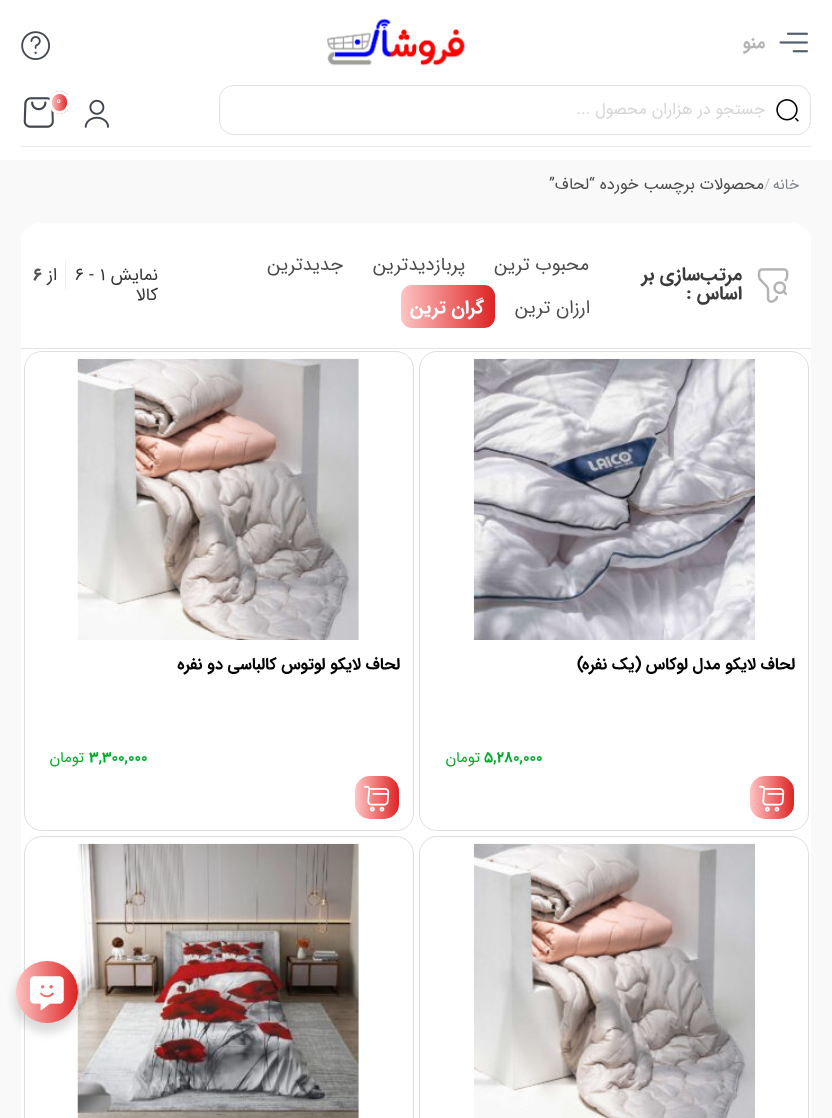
<!DOCTYPE html>
<meta charset="utf-8">
<style>body { margin: 0 } canvas { display: block }</style>
<canvas id="canvas" width="832" height="1118"></canvas>
<script type="module">
  const canvas = document.getElementById("canvas");
  const g = canvas.getContext("2d");
  g.miterLimit = 4;
  g.fontKerning = "normal";
  function drawText(s, x, y, [font, color]) {
    g.font = font;
    g.fillStyle = color;
    g.fillText(s, x, y);
  }
  function fillBox(x, y, w, h, color) {
    g.fillStyle = color;
    g.fillRect(x, y, w, h);
  }
  function fillRounded(x, y, w, h, r, color) {
    g.fillStyle = color;
    g.beginPath();
    g.roundRect(x, y, w, h, r);
    g.fill();
  }
  async function drawPicture(src, x, y, w, h) {
    const img = new Image();
    img.src = src;
    await img.decode();
    g.drawImage(img, x, y, w, h);
  }
  let gradient;

  const s1 = ["bold 17.5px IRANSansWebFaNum", "#B4B4B4"];
  const s2 = ["12px IRANSansWebFaNum", "#FFFFFF"];
  const s3 = ["16.25px IRANSansWebFaNum", "#D6D6D6"];
  const s4 = ["15px IRANSansWebFaNum", "#81858B"];
  const s5 = ["15px IRANSansWebFaNum", "#C8C4C4"];
  const s6 = ["16.25px IRANSansWebFaNum", "#4D4D4D"];
  const s7 = ["bold 18.75px IRANSansWebFaNum", "#3B3B3B"];
  const s8 = ["18.75px IRANSansWebFaNum", "#4D4D4D"];
  const s9 = ["bold 18.75px IRANSansWebFaNum", "#FFFFFF"];
  const s10 = ["17.5px IRANSansWebFaNum", "#353535"];
  const s11 = ["bold 17.5px IRANSansWebFaNum", "#555555"];
  const s12 = ["bold 16.25px IRANSansWebFaNum", "#000000"];
  const s13 = ["bold 15px IRANSansWebFaNum", "#01AD2B"];
  const s14 = ["15px IRANSansWebFaNum", "#01AD2B"];

  fillBox(0, 0, 832, 1118, "#F9F9F9");
  fillBox(0, 0, 832, 160, "#FFFFFF");
  await drawPicture("pic1.png", 779, 32, 29, 21);
  g.direction = "rtl";
  drawText("منو", 765, 48, s1);
  await drawPicture("pic2.png", 327, 18, 138, 48);
  await drawPicture("pic3.png", 21, 31, 29, 29);
  fillBox(21, 146, 790, 1, "#EBEBEF");
  await drawPicture("pic4.png", 84, 99, 25, 29);
  await drawPicture("pic5.png", 23, 97, 31, 31);
  g.save();
  g.beginPath();
  g.roundRect(49, 91, 21, 23, 10.5);
  g.clip();
  gradient = g.createLinearGradient(51, 103, 68, 103);
  gradient.addColorStop(0, "#FFC4C4");
  gradient.addColorStop(1, "#DD2323");
  g.fillStyle = gradient;
  g.fillRect(51, 91, 17, 23);
  g.restore();
  g.beginPath();
  g.roundRect(50.5, 92.5, 18, 20, 9);
  g.strokeStyle = "#FFFFFF";
  g.lineWidth = 3;
  g.stroke();
  g.direction = "ltr";
  drawText("0", 56, 104, s2);
  g.beginPath();
  g.roundRect(219.5, 85.5, 591, 49, 13.5);
  g.strokeStyle = "#E2E2E2";
  g.lineWidth = 1;
  g.stroke();
  await drawPicture("pic6.png", 776, 99, 23, 23);
  g.direction = "rtl";
  drawText("جستجو در هزاران محصول ...", 765, 114, s3);
  drawText("خانه", 799, 189, s4);
  g.direction = "ltr";
  drawText("/", 764, 189, s5);
  g.direction = "rtl";
  drawText("محصولات برچسب خورده “لحاف”", 764, 189, s6);
  fillRounded(21, 223, 790, 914, 19, "#FFFFFF");
  fillBox(21, 348, 790, 1, "#E3E3E3");
  await drawPicture("pic7.png", 757, 268, 32, 35);
  drawText("مرتب‌سازی بر", 742, 280, s7);
  drawText("اساس :", 742, 299, s7);
  drawText("محبوب ترین", 589, 270, s8);
  drawText("پربازدیدترین", 465, 270, s8);
  drawText("جدیدترین", 343, 270, s8);
  drawText("ارزان ترین", 590, 313, s8);
  gradient = g.createLinearGradient(401, 306, 495, 306);
  gradient.addColorStop(0, "#FFC4C4");
  gradient.addColorStop(1, "#DD2323");
  g.fillStyle = gradient;
  g.beginPath();
  g.roundRect(401, 285, 94, 43, 11);
  g.fill();
  drawText("گران ترین", 484, 313, s9);
  drawText("نمایش", 158, 280, s10);
  g.direction = "ltr";
  drawText("1", 100, 280, s10);
  drawText("-", 89, 280, s10);
  drawText("6", 75, 280, s10);
  g.direction = "rtl";
  drawText("از", 57, 280, s10);
  fillBox(65, 261, 1, 28, "#EEEEEE");
  g.direction = "ltr";
  drawText("6", 33, 280, s11);
  g.direction = "rtl";
  drawText("کالا", 158, 300, s10);
  g.beginPath();
  g.roundRect(419.5, 351.5, 389, 479, 17.5);
  g.strokeStyle = "#DEDEE1";
  g.stroke();
  await drawPicture("pic8.png", 473, 358, 282, 282);
  drawText("لحاف لایکو مدل لوکاس (یک نفره)", 795, 669, s12);
  g.direction = "ltr";
  drawText("5,280,000", 484, 762, s13);
  g.direction = "rtl";
  drawText("تومان", 480, 762, s14);
  gradient = g.createLinearGradient(750, 798, 794, 798);
  gradient.addColorStop(0, "#FFC4C4");
  gradient.addColorStop(1, "#DD2323");
  g.fillStyle = gradient;
  g.beginPath();
  g.roundRect(750, 776, 44, 43, 15);
  g.fill();
  await drawPicture("pic9.png", 759, 785, 26, 27);
  g.beginPath();
  g.roundRect(24.5, 351.5, 389, 479, 17.5);
  g.stroke();
  await drawPicture("pic10.png", 77, 358, 282, 282);
  drawText("لحاف لایکو لوتوس کالباسی دو نفره", 400, 669, s12);
  g.direction = "ltr";
  drawText("3,300,000", 89, 762, s13);
  g.direction = "rtl";
  drawText("تومان", 84, 762, s14);
  gradient = g.createLinearGradient(355, 798, 399, 798);
  gradient.addColorStop(0, "#FFC4C4");
  gradient.addColorStop(1, "#DD2323");
  g.fillStyle = gradient;
  g.beginPath();
  g.roundRect(355, 776, 44, 43, 15);
  g.fill();
  await drawPicture("pic9.png", 364, 785, 26, 27);
  g.beginPath();
  g.roundRect(419.5, 836.5, 389, 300, 17.5);
  g.stroke();
  await drawPicture("pic11.png", 473, 843, 282, 275);
  g.beginPath();
  g.roundRect(24.5, 836.5, 389, 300, 17.5);
  g.stroke();
  await drawPicture("pic12.png", 77, 843, 282, 275);
  g.fillStyle = "rgba(0, 0, 0, 0.14)";
  g.filter = "blur(5px)";
  g.beginPath();
  g.roundRect(14, 966, 66, 67, 33);
  g.fill();
  g.filter = "none";
  gradient = g.createLinearGradient(16, 992, 78, 992);
  gradient.addColorStop(0, "#FFC4C4");
  gradient.addColorStop(1, "#DD2323");
  g.fillStyle = gradient;
  g.beginPath();
  g.arc(47, 992, 31, 0, Math.PI * 2);
  g.fill();
  await drawPicture("pic13.png", 30, 976, 34, 34);
</script>
